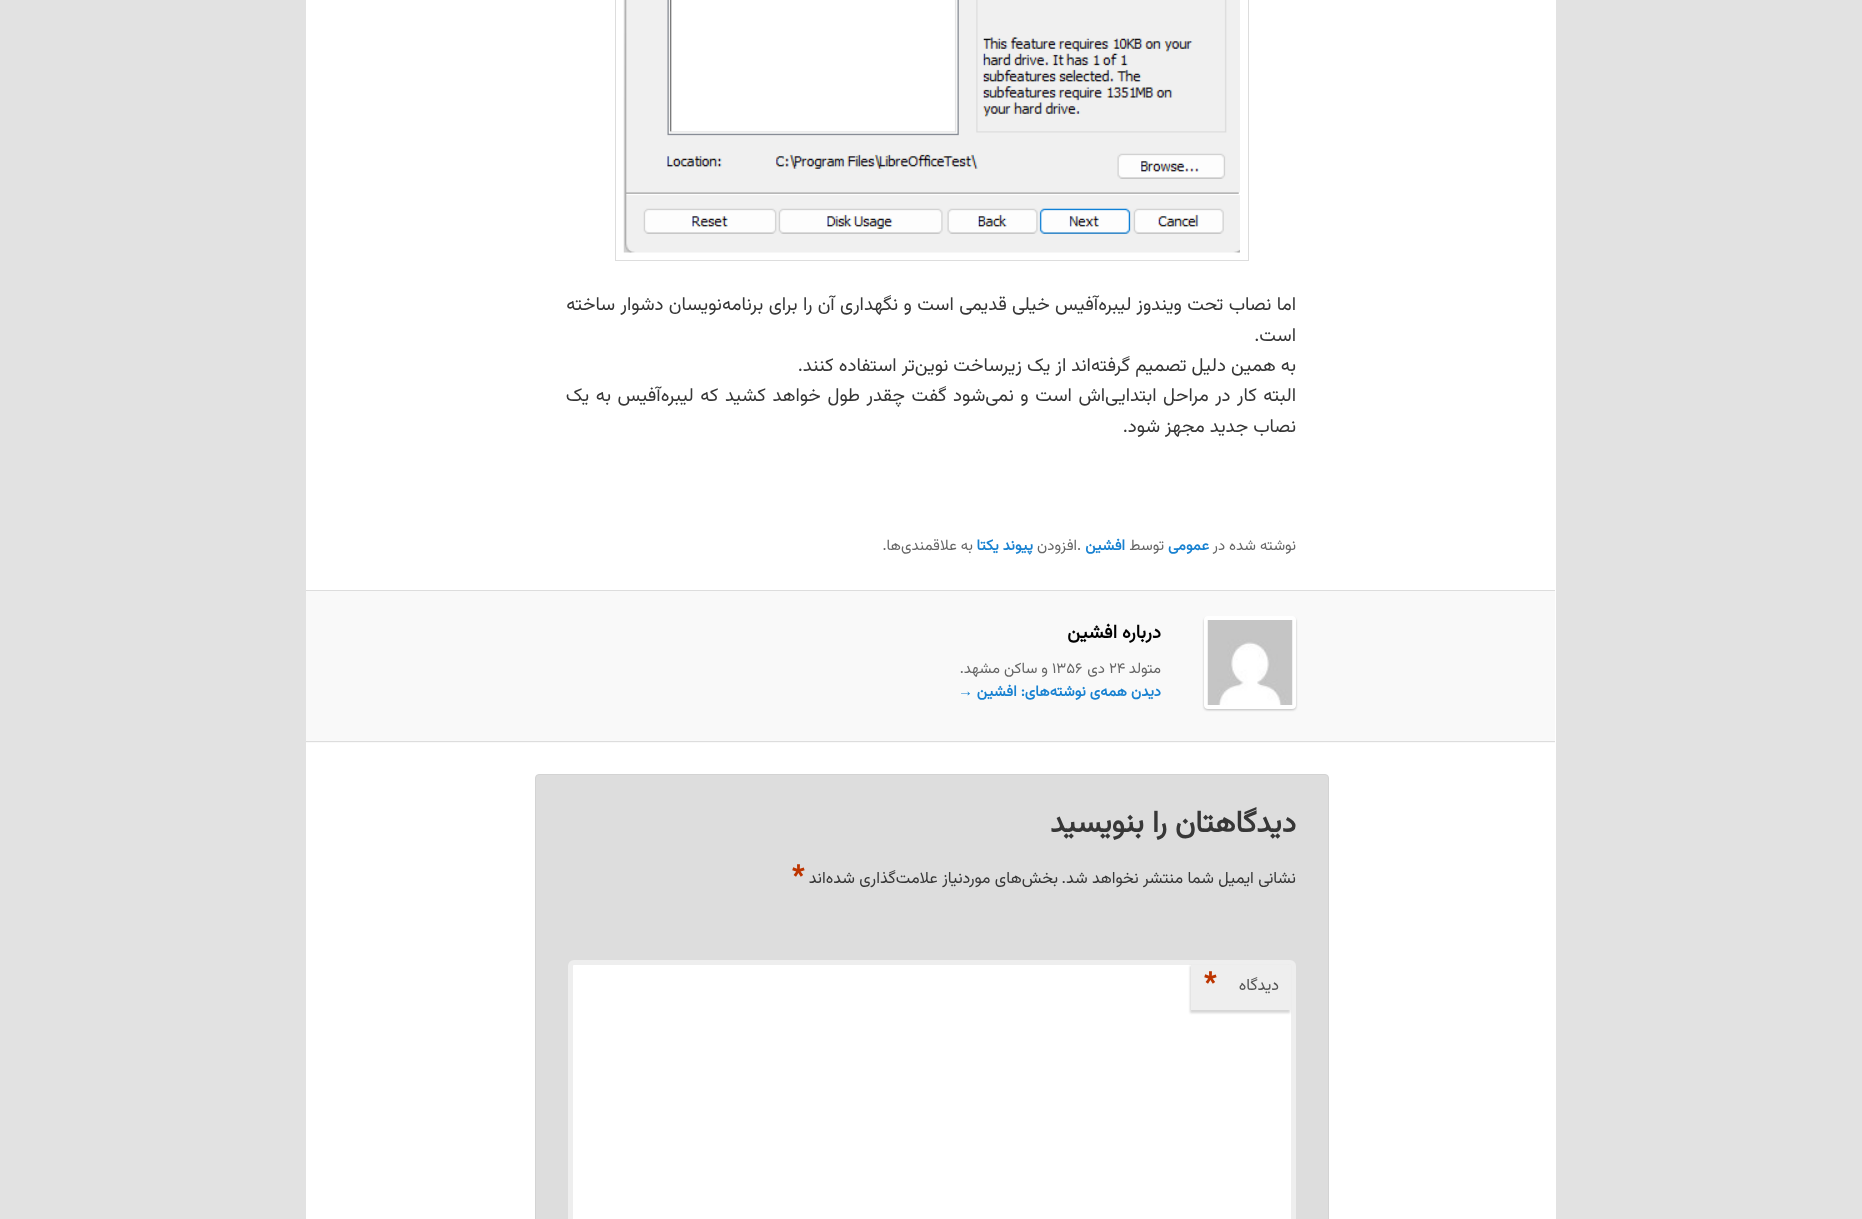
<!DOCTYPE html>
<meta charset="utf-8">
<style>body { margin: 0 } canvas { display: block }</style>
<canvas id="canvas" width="1862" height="1219"></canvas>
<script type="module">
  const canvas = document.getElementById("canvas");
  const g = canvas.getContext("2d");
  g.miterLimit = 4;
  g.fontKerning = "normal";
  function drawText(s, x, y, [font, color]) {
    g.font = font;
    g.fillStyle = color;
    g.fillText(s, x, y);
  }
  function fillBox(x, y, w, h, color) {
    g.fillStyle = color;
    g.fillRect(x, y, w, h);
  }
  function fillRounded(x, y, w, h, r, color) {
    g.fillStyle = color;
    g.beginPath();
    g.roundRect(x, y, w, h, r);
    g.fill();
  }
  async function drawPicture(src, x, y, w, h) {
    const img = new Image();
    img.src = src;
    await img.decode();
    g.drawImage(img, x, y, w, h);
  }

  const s1 = ["18.75px Vazirmatn", "#373737"];
  const s2 = ["15px Vazirmatn", "#666666"];
  const s3 = ["bold 15px Vazirmatn", "#1982D1"];
  const s4 = ["bold 18.75px Vazirmatn", "#000000"];
  const s5 = ["bold 15px Liberation Serif", "#1982D1"];
  const s6 = ["bold 30px Vazirmatn", "#373737"];
  const s7 = ["16.25px Vazirmatn", "#373737"];
  const s8 = ["bold 28px Vazirmatn", "#BD3500"];
  const s9 = ["16.25px Vazirmatn", "#555555"];

  fillBox(0, 0, 1862, 1219, "#E2E2E2");
  fillBox(306, 0, 1250, 1219, "#FFFFFF");
  g.strokeStyle = "#DDDDDD";
  g.strokeRect(615.5, -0.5, 633, 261);
  await drawPicture("pic1.png", 623, 0, 617, 253);
  g.wordSpacing = "0.3px";
  g.direction = "rtl";
  drawText("اما نصاب تحت ویندوز لیبره‌آفیس خیلی قدیمی است و نگهداری آن را برای برنامه‌نویسان دشوار ساخته", 1296, 310, s1);
  g.wordSpacing = "0px";
  drawText("است.", 1296, 341, s1);
  drawText("به همین دلیل تصمیم گرفته‌اند از یک زیرساخت نوین‌تر استفاده کنند.", 1296, 371, s1);
  g.wordSpacing = "1.5px";
  drawText("البته کار در مراحل ابتدایی‌اش است و نمی‌شود گفت چقدر طول خواهد کشید که لیبره‌آفیس به یک", 1296, 401, s1);
  g.wordSpacing = "0px";
  drawText("نصاب جدید مجهز شود.", 1296, 432, s1);
  drawText("نوشته شده در", 1296, 550, s2);
  drawText("عمومی", 1209, 550, s3);
  drawText("توسط", 1164, 550, s2);
  drawText("افشین", 1125, 550, s3);
  g.direction = "ltr";
  drawText(".", 1077, 550, s2);
  g.direction = "rtl";
  drawText("افزودن", 1077, 550, s2);
  drawText("پیوند یکتا", 1033, 550, s3);
  drawText("به علاقمندی‌ها.", 973, 550, s2);
  fillBox(306, 591, 1249, 152, "#F9F9F9");
  fillBox(306, 590, 1249, 1, "#DDDDDD");
  fillBox(306, 741, 1249, 1, "#DDDDDD");
  g.fillStyle = "#BBBBBB";
  g.filter = "blur(1px)";
  g.beginPath();
  g.roundRect(1204, 618, 92, 92, 4);
  g.fill();
  g.filter = "none";
  fillRounded(1204, 616, 92, 93, 4, "#FFFFFF");
  await drawPicture("pic2.png", 1207, 620, 86, 85);
  drawText("درباره افشین", 1161, 638, s4);
  drawText("متولد", 1161, 673, s2);
  g.direction = "ltr";
  drawText("۲۴", 1109, 673, s2);
  g.direction = "rtl";
  drawText("دی", 1105, 673, s2);
  g.direction = "ltr";
  drawText("۱۳۵۶", 1052, 673, s2);
  g.direction = "rtl";
  drawText("و ساکن مشهد.", 1048, 673, s2);
  drawText("دیدن همه‌ی نوشته‌های: افشین", 1161, 696, s3);
  g.direction = "ltr";
  drawText("→", 958, 696, s5);
  g.fillStyle = "#DDDDDD";
  g.beginPath();
  g.roundRect(535.5, 774.5, 793, 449, 3.5);
  g.fill();
  g.strokeStyle = "#D3D3D3";
  g.stroke();
  g.direction = "rtl";
  drawText("دیدگاهتان را بنویسید", 1296, 832, s6);
  drawText("نشانی ایمیل شما منتشر نخواهد شد.", 1296, 883, s7);
  drawText("بخش‌های موردنیاز علامت‌گذاری شده‌اند", 1058, 883, s7);
  g.direction = "ltr";
  drawText("*", 792, 885, s8);
  g.fillStyle = "#FFFFFF";
  g.beginPath();
  g.roundRect(570.5, 962.5, 723, 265, 3.5);
  g.fill();
  g.strokeStyle = "#EEEEEE";
  g.lineWidth = 5;
  g.stroke();
  g.fillStyle = "rgba(204, 204, 204, 0.8)";
  g.filter = "blur(1px)";
  g.beginPath();
  g.rect(1190, 966, 100, 47);
  g.fill();
  g.filter = "none";
  fillBox(1191, 965, 100, 45, "#EEEEEE");
  g.direction = "rtl";
  drawText("دیدگاه", 1279, 990, s9);
  g.direction = "ltr";
  drawText("*", 1204, 992, s8);
</script>
